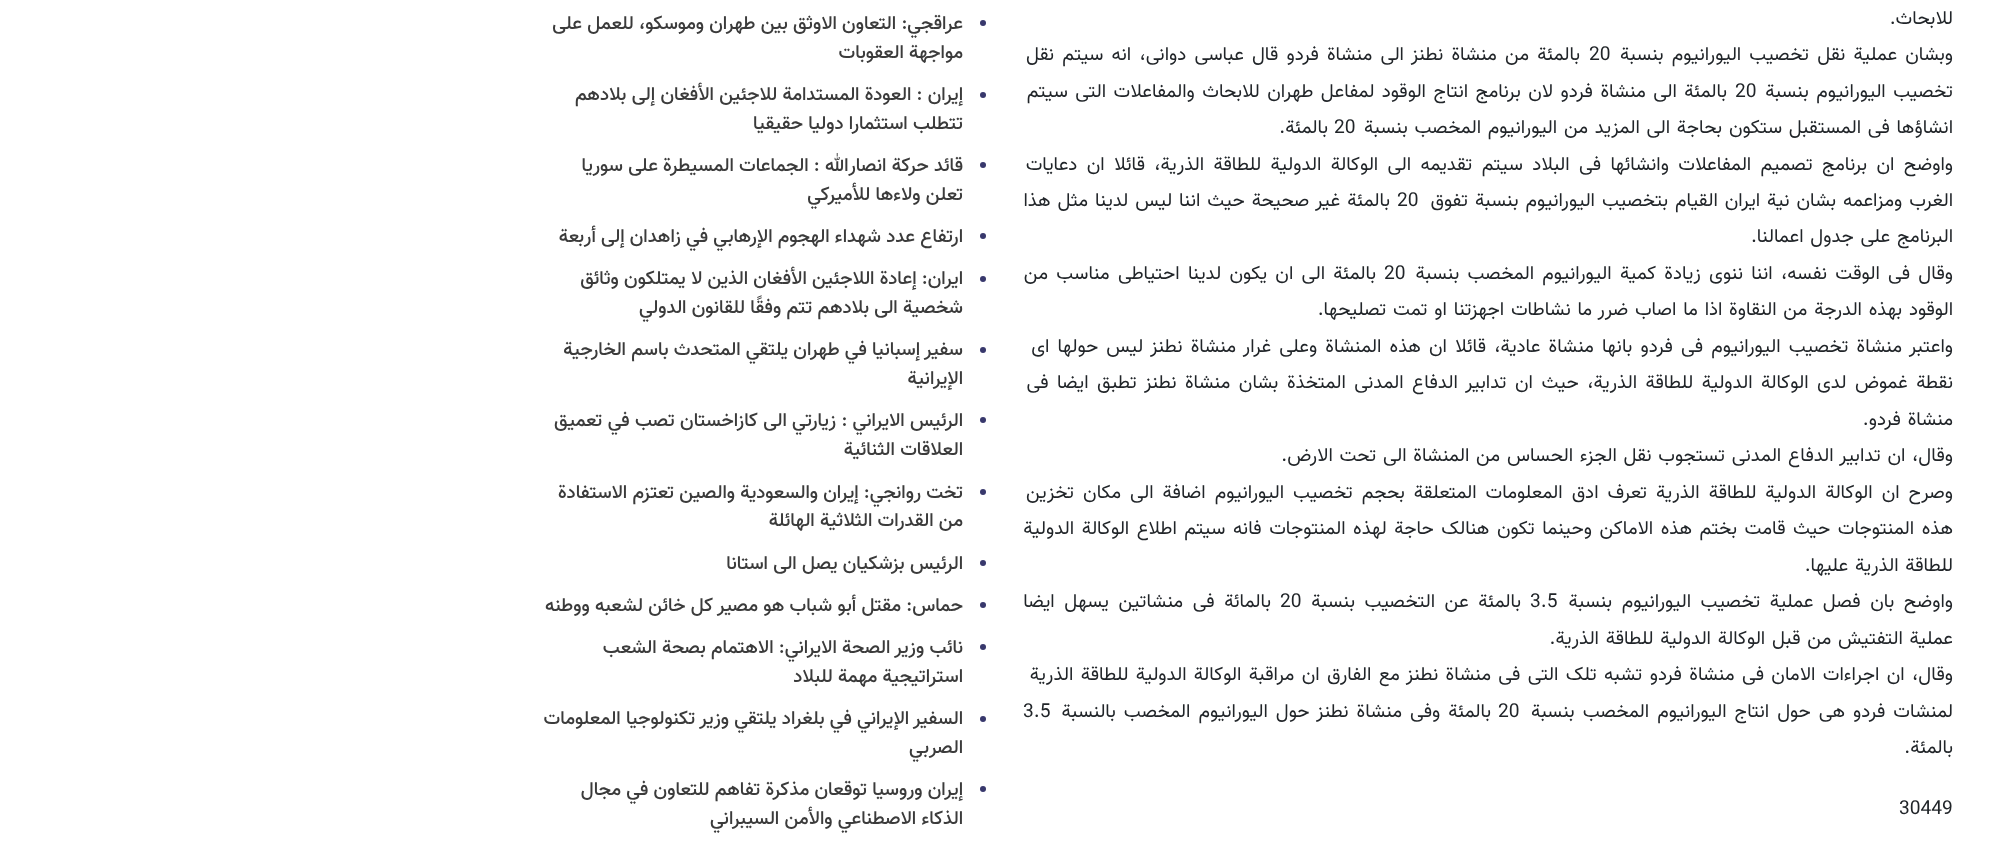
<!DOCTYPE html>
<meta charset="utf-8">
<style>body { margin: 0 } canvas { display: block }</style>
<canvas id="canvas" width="2015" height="854"></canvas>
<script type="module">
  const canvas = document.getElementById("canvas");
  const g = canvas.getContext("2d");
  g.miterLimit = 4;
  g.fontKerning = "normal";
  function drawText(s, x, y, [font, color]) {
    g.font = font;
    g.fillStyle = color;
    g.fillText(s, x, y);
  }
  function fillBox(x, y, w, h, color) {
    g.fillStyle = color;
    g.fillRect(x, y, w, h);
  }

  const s1 = ["19.2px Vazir", "#212529"];
  const s2 = ["500 19.2px Vazir", "#3B3B3B"];

  fillBox(0, 0, 2015, 854, "#FFFFFF");
  g.direction = "rtl";
  drawText("للابحاث.", 1953, 24, s1);
  g.wordSpacing = "2.9px";
  drawText("وبشان عملیة نقل تخصیب الیورانیوم بنسبة", 1953, 60, s1);
  g.wordSpacing = "0px";
  g.direction = "ltr";
  drawText("20", 1589, 60, s1);
  g.wordSpacing = "2.9px";
  g.direction = "rtl";
  drawText("بالمئة من منشاة نطنز الی منشاة فردو قال عباسی دوانی، انه سیتم نقل", 1580, 60, s1);
  g.wordSpacing = "2.25px";
  drawText("تخصیب الیورانیوم بنسبة", 1953, 97, s1);
  g.wordSpacing = "0px";
  g.direction = "ltr";
  drawText("20", 1735, 97, s1);
  g.wordSpacing = "2.25px";
  g.direction = "rtl";
  drawText("بالمئة الی منشاة فردو لان برنامج انتاج الوقود لمفاعل طهران للابحاث والمفاعلات التی سیتم", 1727, 97, s1);
  g.wordSpacing = "1.5px";
  drawText("انشاؤها فی المستقبل ستکون بحاجة الی المزید من الیورانیوم المخصب بنسبة", 1953, 133, s1);
  g.wordSpacing = "0px";
  g.direction = "ltr";
  drawText("20", 1334, 133, s1);
  g.direction = "rtl";
  drawText("بالمئة.", 1328, 133, s1);
  g.wordSpacing = "4.1px";
  drawText("واوضح ان برنامج تصمیم المفاعلات وانشائها فی البلاد سیتم تقدیمه الی الوکالة الدولیة للطاقة الذریة، قائلا ان دعایات", 1953, 170, s1);
  g.wordSpacing = "1.75px";
  drawText("الغرب ومزاعمه بشان نیة ایران القیام بتخصیب الیورانیوم بنسبة تفوق", 1953, 206, s1);
  g.wordSpacing = "0px";
  g.direction = "ltr";
  drawText("20", 1397, 206, s1);
  g.wordSpacing = "1.75px";
  g.direction = "rtl";
  drawText("بالمئة غیر صحیحة حیث اننا لیس لدینا مثل هذا", 1390, 206, s1);
  g.wordSpacing = "1.5px";
  drawText("البرنامج علی جدول اعمالنا.", 1953, 242, s1);
  g.wordSpacing = "3px";
  drawText("وقال فی الوقت نفسه، اننا ننوی زیادة کمیة الیورانیوم المخصب بنسبة", 1953, 279, s1);
  g.wordSpacing = "0px";
  g.direction = "ltr";
  drawText("20", 1384, 279, s1);
  g.wordSpacing = "3px";
  g.direction = "rtl";
  drawText("بالمئة الی ان یکون لدینا احتیاطی مناسب من", 1376, 279, s1);
  g.wordSpacing = "1.5px";
  drawText("الوقود بهذه الدرجة من النقاوة اذا ما اصاب ضرر ما نشاطات اجهزتنا او تمت تصلیحها.", 1953, 315, s1);
  g.wordSpacing = "2.9px";
  drawText("واعتبر منشاة تخصیب الیورانیوم فی فردو بانها منشاة عادیة، قائلا ان هذه المنشاة وعلی غرار منشاة نطنز لیس حولها ای", 1953, 352, s1);
  g.wordSpacing = "3.25px";
  drawText("نقطة غموض لدی الوکالة الدولیة للطاقة الذریة، حیث ان تدابیر الدفاع المدنی المتخذة بشان منشاة نطنز تطبق ایضا فی", 1953, 388, s1);
  g.wordSpacing = "1.5px";
  drawText("منشاة فردو.", 1953, 425, s1);
  drawText("وقال، ان تدابیر الدفاع المدنی تستجوب نقل الجزء الحساس من المنشاة الی تحت الارض.", 1953, 461, s1);
  g.wordSpacing = "3.75px";
  drawText("وصرح ان الوکالة الدولیة للطاقة الذریة تعرف ادق المعلومات المتعلقة بحجم تخصیب الیورانیوم اضافة الی مکان تخزین", 1953, 498, s1);
  g.wordSpacing = "2.25px";
  drawText("هذه المنتوجات حیث قامت بختم هذه الاماکن وحینما تکون هنالک حاجة لهذه المنتوجات فانه سیتم اطلاع الوکالة الدولیة", 1953, 534, s1);
  g.wordSpacing = "1.5px";
  drawText("للطاقة الذریة علیها.", 1953, 571, s1);
  g.wordSpacing = "4.25px";
  drawText("واوضح بان فصل عملیة تخصیب الیورانیوم بنسبة", 1953, 607, s1);
  g.wordSpacing = "0px";
  g.direction = "ltr";
  drawText("3.5", 1530, 607, s1);
  g.wordSpacing = "4.25px";
  g.direction = "rtl";
  drawText("بالمئة عن التخصیب بنسبة", 1521, 607, s1);
  g.wordSpacing = "0px";
  g.direction = "ltr";
  drawText("20", 1280, 607, s1);
  g.wordSpacing = "4.25px";
  g.direction = "rtl";
  drawText("بالمائة فی منشاتین یسهل ایضا", 1271, 607, s1);
  g.wordSpacing = "1.5px";
  drawText("عملیة التفتیش من قبل الوکالة الدولیة للطاقة الذریة.", 1953, 644, s1);
  g.wordSpacing = "2.1px";
  drawText("وقال، ان اجراءات الامان فی منشاة فردو تشبه تلک التی فی منشاة نطنز مع الفارق ان مراقبة الوکالة الدولیة للطاقة الذریة", 1953, 680, s1);
  g.wordSpacing = "2.75px";
  drawText("لمنشات فردو هی حول انتاج الیورانیوم المخصب بنسبة", 1953, 717, s1);
  g.wordSpacing = "0px";
  g.direction = "ltr";
  drawText("20", 1498, 717, s1);
  g.wordSpacing = "2.75px";
  g.direction = "rtl";
  drawText("بالمئة وفی منشاة نطنز حول الیورانیوم المخصب بالنسبة", 1491, 717, s1);
  g.wordSpacing = "0px";
  g.direction = "ltr";
  drawText("3.5", 1023, 717, s1);
  g.direction = "rtl";
  drawText("بالمئة.", 1953, 753, s1);
  g.direction = "ltr";
  drawText("30449", 1899, 814, s1);
  g.fillStyle = "#38386C";
  g.beginPath();
  g.arc(983, 23, 3, 0, Math.PI * 2);
  g.fill();
  g.direction = "rtl";
  drawText("عراقجي: التعاون الاوثق بين طهران وموسكو، للعمل على", 963, 29, s2);
  drawText("مواجهة العقوبات", 963, 58, s2);
  g.fillStyle = "#38386C";
  g.beginPath();
  g.arc(983, 95, 3, 0, Math.PI * 2);
  g.fill();
  drawText("إيران : العودة المستدامة للاجئين الأفغان إلى بلادهم", 963, 100, s2);
  drawText("تتطلب استثمارا دوليا حقيقيا", 963, 129, s2);
  g.fillStyle = "#38386C";
  g.beginPath();
  g.arc(983, 165, 3, 0, Math.PI * 2);
  g.fill();
  drawText("قائد حرکة انصارالله : الجماعات المسيطرة على سوريا", 963, 171, s2);
  drawText("تعلن ولاءها للأميركي", 963, 200, s2);
  g.fillStyle = "#38386C";
  g.beginPath();
  g.arc(983, 236, 3, 0, Math.PI * 2);
  g.fill();
  drawText("ارتفاع عدد شهداء الهجوم الإرهابي في زاهدان إلى أربعة", 963, 242, s2);
  g.fillStyle = "#38386C";
  g.beginPath();
  g.arc(983, 279, 3, 0, Math.PI * 2);
  g.fill();
  drawText("ايران: إعادة اللاجئين الأفغان الذين لا يمتلكون وثائق", 963, 284, s2);
  drawText("شخصية الى بلادهم تتم وفقًا للقانون الدولي", 963, 313, s2);
  g.fillStyle = "#38386C";
  g.beginPath();
  g.arc(983, 350, 3, 0, Math.PI * 2);
  g.fill();
  drawText("سفير إسبانيا في طهران يلتقي المتحدث باسم الخارجية", 963, 355, s2);
  drawText("الإيرانية", 963, 384, s2);
  g.fillStyle = "#38386C";
  g.beginPath();
  g.arc(983, 420, 3, 0, Math.PI * 2);
  g.fill();
  drawText("الرئيس الايراني : زيارتي الى كازاخستان تصب في تعميق", 963, 426, s2);
  drawText("العلاقات الثنائية", 963, 455, s2);
  g.fillStyle = "#38386C";
  g.beginPath();
  g.arc(983, 492, 3, 0, Math.PI * 2);
  g.fill();
  drawText("تخت روانجي: إيران والسعودية والصين تعتزم الاستفادة", 963, 498, s2);
  drawText("من القدرات الثلاثية الهائلة", 963, 526, s2);
  g.fillStyle = "#38386C";
  g.beginPath();
  g.arc(983, 563, 3, 0, Math.PI * 2);
  g.fill();
  drawText("الرئيس بزشكيان يصل الى استانا", 963, 569, s2);
  g.fillStyle = "#38386C";
  g.beginPath();
  g.arc(983, 605, 3, 0, Math.PI * 2);
  g.fill();
  drawText("حماس: مقتل أبو شباب هو مصير كل خائن لشعبه ووطنه", 963, 611, s2);
  g.fillStyle = "#38386C";
  g.beginPath();
  g.arc(983, 647, 3, 0, Math.PI * 2);
  g.fill();
  drawText("نائب وزير الصحة الايراني: الاهتمام بصحة الشعب", 963, 653, s2);
  drawText("استراتيجية مهمة للبلاد", 963, 682, s2);
  g.fillStyle = "#38386C";
  g.beginPath();
  g.arc(983, 719, 3, 0, Math.PI * 2);
  g.fill();
  drawText("السفير الإيراني في بلغراد يلتقي وزير تكنولوجيا المعلومات", 963, 724, s2);
  drawText("الصربي", 963, 753, s2);
  g.fillStyle = "#38386C";
  g.beginPath();
  g.arc(983, 789, 3, 0, Math.PI * 2);
  g.fill();
  drawText("إيران وروسيا توقعان مذكرة تفاهم للتعاون في مجال", 963, 795, s2);
  drawText("الذكاء الاصطناعي والأمن السيبراني", 963, 824, s2);
</script>
